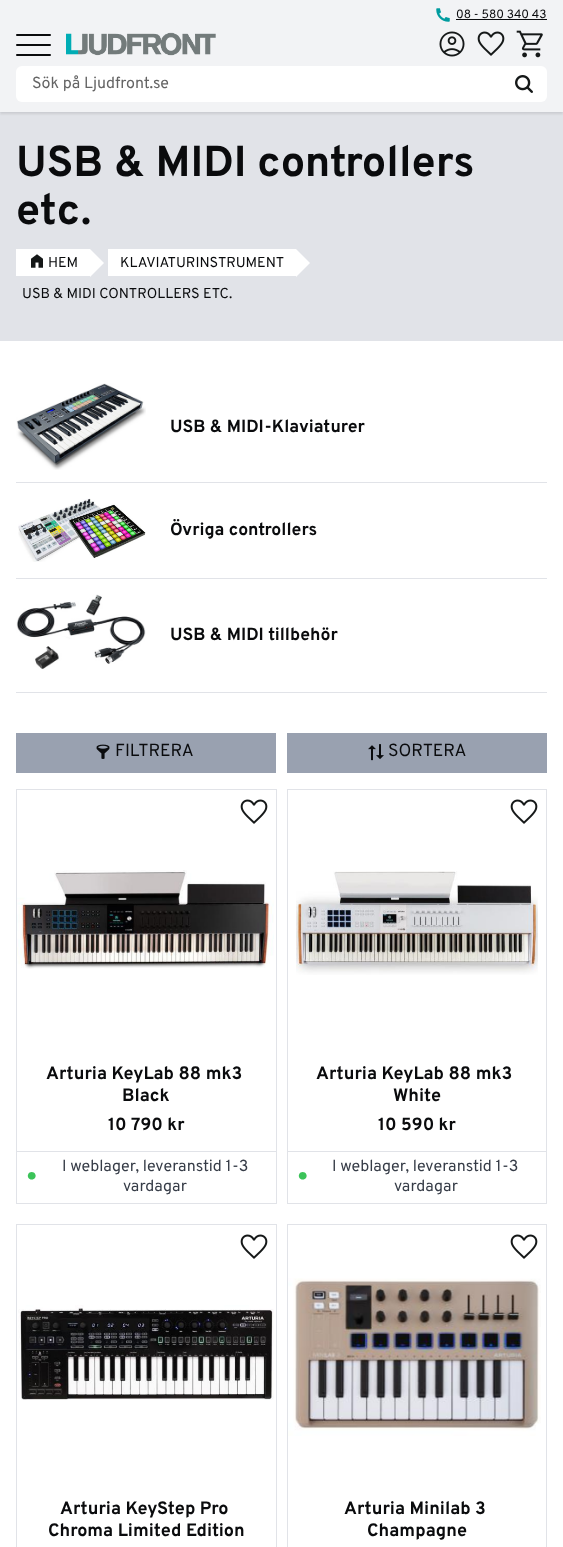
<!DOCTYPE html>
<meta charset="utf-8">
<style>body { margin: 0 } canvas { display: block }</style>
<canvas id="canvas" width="563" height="1547"></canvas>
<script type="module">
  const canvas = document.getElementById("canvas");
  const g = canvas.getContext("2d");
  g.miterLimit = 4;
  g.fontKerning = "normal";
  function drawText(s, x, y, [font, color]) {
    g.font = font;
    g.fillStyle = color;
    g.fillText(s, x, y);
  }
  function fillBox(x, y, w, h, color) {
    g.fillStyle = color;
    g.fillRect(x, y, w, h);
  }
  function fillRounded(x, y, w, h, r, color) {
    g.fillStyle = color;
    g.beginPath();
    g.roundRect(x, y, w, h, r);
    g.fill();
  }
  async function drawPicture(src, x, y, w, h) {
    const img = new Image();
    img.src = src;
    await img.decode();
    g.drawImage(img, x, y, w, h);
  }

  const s1 = ["12px Overpass", "#0A0B0D"];
  const s2 = ["16px Overpass", "#646464"];
  const s3 = ["bold 43.25px Overpass", "#0A0B0D"];
  const s4 = ["14.4px Overpass", "#0A0B0D"];
  const s5 = ["bold 17.6px Overpass", "#0A0B0D"];
  const s6 = ["17.6px Overpass", "#0A0B0D"];
  const s7 = ["bold 18px Overpass", "#0A0B0D"];
  const s8 = ["32px Overpass", "#3BC359"];
  const s9 = ["16px Overpass", "#363C47"];

  fillBox(0, 0, 563, 1547, "#FFFFFF");
  fillBox(0, 0, 563, 64, "#F2F3F5");
  await drawPicture("pic1.png", 436, 8, 14, 14);
  drawText("08 - 580 340 43", 456, 18, s1);
  fillBox(456, 19, 91, 1, "#0A0B0D");
  await drawPicture("pic2.png", 66, 32, 150, 24);
  await drawPicture("pic3.png", 439, 31, 26, 26);
  await drawPicture("pic4.png", 477, 31, 28, 25);
  await drawPicture("pic5.png", 516, 30, 27, 28);
  fillBox(0, 112, 563, 229, "#E1E3E8");
  g.fillStyle = "rgba(10, 11, 13, 0.1)";
  g.filter = "blur(1px)";
  g.beginPath();
  g.rect(0, 66, 563, 48);
  g.fill();
  g.filter = "none";
  fillBox(0, 64, 563, 48, "#F2F3F5");
  fillRounded(16, 66, 531, 36, 6, "#FFFFFF");
  drawText("Sök på Ljudfront.se", 32, 88, s2);
  await drawPicture("pic6.png", 515, 75, 18, 18);
  fillRounded(16, 44, 35, 2, 1, "#0A0B0D");
  fillRounded(16, 34, 35, 2, 1, "#0A0B0D");
  fillRounded(16, 54, 35, 2, 1, "#0A0B0D");
  drawText("USB & MIDI controllers", 16, 176, s3);
  drawText("etc.", 16, 224, s3);
  fillBox(16, 249, 74, 27, "#FFFFFF");
  await drawPicture("pic7.png", 31, 254, 12, 14);
  drawText("HEM", 48, 267, s4);
  g.fillStyle = "#FFFFFF";
  g.beginPath();
  g.moveTo(90, 277);
  g.lineTo(90, 249);
  g.lineTo(104, 263);
  g.closePath();
  g.fill();
  fillBox(108, 249, 188, 27, "#FFFFFF");
  drawText("KLAVIATURINSTRUMENT", 120, 267, s4);
  g.fillStyle = "#FFFFFF";
  g.beginPath();
  g.moveTo(296, 277);
  g.lineTo(296, 249);
  g.lineTo(310, 263);
  g.closePath();
  g.fill();
  drawText("USB & MIDI CONTROLLERS ETC.", 22, 298, s4);
  fillBox(16, 482, 531, 1, "#E1E3E8");
  await drawPicture("pic8.png", 16, 383, 130, 87);
  drawText("USB & MIDI-Klaviaturer", 170, 432, s5);
  fillBox(16, 578, 531, 1, "#E1E3E8");
  await drawPicture("pic9.png", 18, 498, 128, 64);
  drawText("Övriga controllers", 170, 535, s5);
  fillBox(16, 692, 531, 1, "#E1E3E8");
  await drawPicture("pic10.png", 16, 594, 130, 76);
  drawText("USB & MIDI tillbehör", 170, 640, s5);
  fillBox(16, 733, 260, 40, "#99A1B0");
  await drawPicture("pic11.png", 96, 744, 14, 15);
  drawText("FILTRERA", 115, 756, s6);
  fillBox(287, 733, 260, 40, "#99A1B0");
  await drawPicture("pic12.png", 368, 744, 16, 17);
  drawText("SORTERA", 388, 756, s6);
  g.strokeStyle = "#E1E3E8";
  g.strokeRect(16.5, 789.5, 260, 414);
  await drawPicture("pic13.png", 240, 799, 28, 25);
  await drawPicture("pic14.png", 17, 870, 257, 99);
  drawText("Arturia KeyLab 88 mk3", 46, 1079, s7);
  drawText("Black", 122, 1101, s7);
  drawText("10 790 kr", 108, 1130, s5);
  fillBox(17, 1151, 259, 1, "#E1E3E8");
  drawText("•", 25, 1187, s8);
  drawText("I weblager, leveranstid 1-3", 62, 1171, s9);
  drawText("vardagar", 123, 1191, s9);
  g.strokeRect(287.5, 789.5, 259, 414);
  await drawPicture("pic13.png", 510, 799, 28, 25);
  await drawPicture("pic15.png", 296, 871, 242, 104);
  drawText("Arturia KeyLab 88 mk3", 316, 1079, s7);
  drawText("White", 393, 1101, s7);
  drawText("10 590 kr", 378, 1130, s5);
  fillBox(288, 1151, 258, 1, "#E1E3E8");
  drawText("•", 296, 1187, s8);
  drawText("I weblager, leveranstid 1-3", 332, 1171, s9);
  drawText("vardagar", 394, 1191, s9);
  g.strokeRect(16.5, 1224.5, 260, 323);
  await drawPicture("pic13.png", 240, 1234, 28, 25);
  await drawPicture("pic16.png", 18, 1305, 256, 95);
  drawText("Arturia KeyStep Pro", 60, 1514, s7);
  drawText("Chroma Limited Edition", 48, 1536, s7);
  g.strokeRect(287.5, 1224.5, 259, 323);
  await drawPicture("pic13.png", 510, 1234, 28, 25);
  await drawPicture("pic17.png", 288, 1278, 253, 158);
  drawText("Arturia Minilab 3", 344, 1514, s7);
  drawText("Champagne", 367, 1536, s7);
</script>
